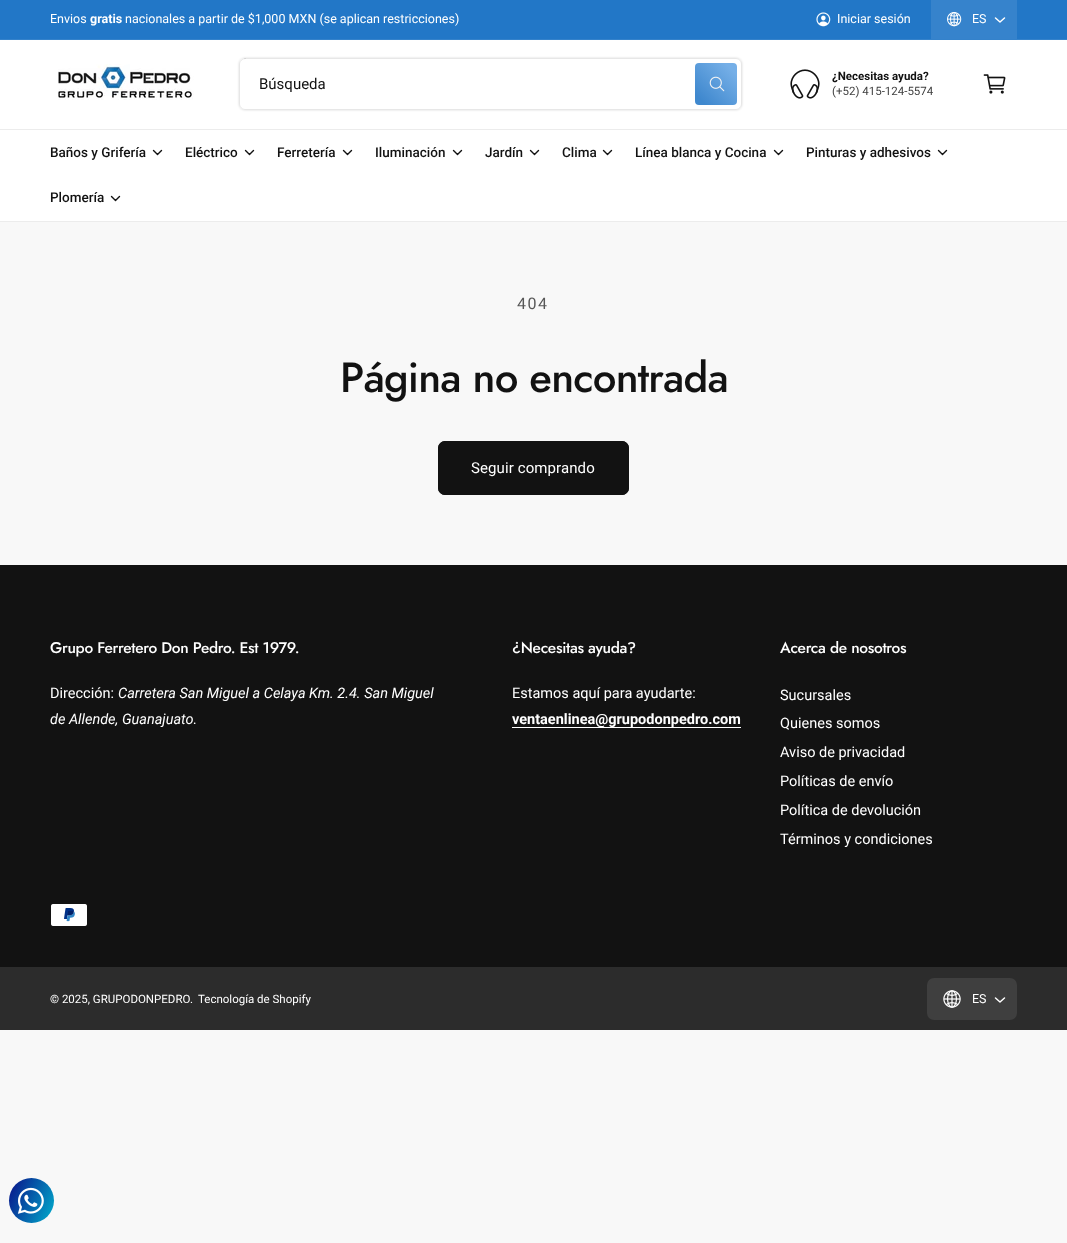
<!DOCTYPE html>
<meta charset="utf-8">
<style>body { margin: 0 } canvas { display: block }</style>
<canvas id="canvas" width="1067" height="1243"></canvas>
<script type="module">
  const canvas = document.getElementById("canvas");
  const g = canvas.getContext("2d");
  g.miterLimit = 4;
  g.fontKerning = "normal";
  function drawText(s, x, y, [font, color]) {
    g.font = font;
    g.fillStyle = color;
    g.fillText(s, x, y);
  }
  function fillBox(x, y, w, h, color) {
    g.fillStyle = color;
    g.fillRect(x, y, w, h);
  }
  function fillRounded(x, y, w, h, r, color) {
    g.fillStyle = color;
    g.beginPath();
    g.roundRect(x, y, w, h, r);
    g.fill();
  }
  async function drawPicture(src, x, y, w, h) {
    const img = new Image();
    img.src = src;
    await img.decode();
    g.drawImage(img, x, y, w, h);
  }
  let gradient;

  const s1 = ["12.5px Roboto", "#FFFFFF"];
  const s2 = ["bold 12.5px Roboto", "#FFFFFF"];
  const s3 = ["15px Roboto", "#121212"];
  const s4 = ["bold 11.5px Roboto", "#121212"];
  const s5 = ["11.5px Roboto", "#414141"];
  const s6 = ["500 13.5px Roboto", "#121212"];
  const s7 = ["16px Roboto", "#575757"];
  const s8 = ["500 42px Jost", "#121212"];
  const s9 = ["15px Roboto", "#FFFFFF"];
  const s10 = ["500 15.5px Jost", "#FFFFFF"];
  const s11 = ["14.5px Roboto", "#FFFFFF"];
  const s12 = ["italic 14.5px Roboto", "#FFFFFF"];
  const s13 = ["bold 14.5px Roboto", "#FFFFFF"];
  const s14 = ["11.5px Roboto", "#FFFFFF"];

  fillBox(0, 0, 1067, 1243, "#F8F8F8");
  fillBox(0, 0, 1067, 39, "#2277C7");
  fillBox(0, 39, 1067, 1, "#3482CB");
  drawText("Envios", 50, 23, s1);
  drawText("gratis", 90, 23, s2);
  drawText("nacionales a partir de $1,000 MXN (se aplican restricciones)", 125, 23, s1);
  await drawPicture("pic1.png", 816, 12, 15, 15);
  drawText("Iniciar sesión", 837, 23, s1);
  fillBox(931, 0, 86, 39, "#3683CC");
  await drawPicture("pic2.png", 947, 12, 15, 15);
  drawText("ES", 972, 23, s1);
  g.beginPath();
  g.moveTo(995.5, 18);
  g.lineTo(1000, 22);
  g.lineTo(1004.5, 18);
  g.strokeStyle = "#FFFFFF";
  g.lineWidth = 1.5;
  g.lineCap = "round";
  g.lineJoin = "round";
  g.stroke();
  fillBox(0, 40, 1067, 181, "#FFFFFF");
  await drawPicture("pic3.png", 58, 64, 136, 36);
  gradient = g.createLinearGradient(695, 105, 737, 63);
  gradient.addColorStop(0.13, "#3F88CE");
  gradient.addColorStop(0.86, "#75AFE7");
  g.fillStyle = gradient;
  g.beginPath();
  g.roundRect(695, 63, 42, 42, 4);
  g.fill();
  await drawPicture("pic4.png", 709, 76, 16, 16);
  g.save();
  g.beginPath();
  g.moveTo(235, 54);
  g.lineTo(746, 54);
  g.lineTo(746, 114);
  g.lineTo(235, 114);
  g.closePath();
  g.moveTo(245, 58);
  g.lineTo(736, 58);
  g.bezierCurveTo(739.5, 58, 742, 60.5, 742, 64);
  g.lineTo(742, 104);
  g.bezierCurveTo(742, 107.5, 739.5, 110, 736, 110);
  g.lineTo(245, 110);
  g.bezierCurveTo(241.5, 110, 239, 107.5, 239, 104);
  g.lineTo(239, 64);
  g.bezierCurveTo(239, 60.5, 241.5, 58, 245, 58);
  g.closePath();
  g.clip("evenodd");
  g.fillStyle = "rgba(0, 0, 0, 0.15)";
  g.filter = "blur(1px)";
  g.beginPath();
  g.roundRect(239, 58, 503, 52, 6);
  g.fill();
  g.filter = "none";
  g.restore();
  g.beginPath();
  g.roundRect(239.5, 58.5, 502, 51, 5.5);
  g.strokeStyle = "rgba(18, 18, 18, 0.1)";
  g.lineWidth = 1;
  g.lineJoin = "miter";
  g.stroke();
  drawText("Búsqueda", 259, 89, s3);
  await drawPicture("pic5.png", 790, 69, 30, 30);
  drawText("¿Necesitas ayuda?", 832, 80, s4);
  drawText("(+52) 415-124-5574", 832, 95, s5);
  await drawPicture("pic6.png", 983, 74, 23, 20);
  fillBox(0, 129, 1067, 1, "#ECECEC");
  fillBox(0, 221, 1067, 1, "#ECECEC");
  drawText("Baños y Grifería", 50, 157, s6);
  g.beginPath();
  g.moveTo(153.5, 150.5);
  g.lineTo(157.5, 154.5);
  g.lineTo(161.5, 150.5);
  g.strokeStyle = "#121212";
  g.lineWidth = 1.4;
  g.lineJoin = "round";
  g.stroke();
  drawText("Eléctrico", 185, 157, s6);
  g.beginPath();
  g.moveTo(245.5, 150.5);
  g.lineTo(249.5, 154.5);
  g.lineTo(253.5, 150.5);
  g.stroke();
  drawText("Ferretería", 277, 157, s6);
  g.beginPath();
  g.moveTo(343.5, 150.5);
  g.lineTo(347.5, 154.5);
  g.lineTo(351.5, 150.5);
  g.stroke();
  drawText("Iluminación", 375, 157, s6);
  g.beginPath();
  g.moveTo(453.5, 150.5);
  g.lineTo(457.5, 154.5);
  g.lineTo(461.5, 150.5);
  g.stroke();
  drawText("Jardín", 485, 157, s6);
  g.beginPath();
  g.moveTo(530.5, 150.5);
  g.lineTo(534.5, 154.5);
  g.lineTo(538.5, 150.5);
  g.stroke();
  drawText("Clima", 562, 157, s6);
  g.beginPath();
  g.moveTo(603.5, 150.5);
  g.lineTo(607.5, 154.5);
  g.lineTo(611.5, 150.5);
  g.stroke();
  drawText("Línea blanca y Cocina", 635, 157, s6);
  g.beginPath();
  g.moveTo(774.5, 150.5);
  g.lineTo(778.5, 154.5);
  g.lineTo(782.5, 150.5);
  g.stroke();
  drawText("Pinturas y adhesivos", 806, 157, s6);
  g.beginPath();
  g.moveTo(938.5, 150.5);
  g.lineTo(942.5, 154.5);
  g.lineTo(946.5, 150.5);
  g.stroke();
  drawText("Plomería", 50, 202, s6);
  g.beginPath();
  g.moveTo(111.5, 196.5);
  g.lineTo(115.5, 200.5);
  g.lineTo(119.5, 196.5);
  g.stroke();
  g.letterSpacing = "1.5px";
  drawText("404", 517, 309, s7);
  g.letterSpacing = "-0.8px";
  drawText("Página no encontrada", 340, 392, s8);
  fillRounded(438, 441, 191, 54, 7, "#121212");
  g.beginPath();
  g.roundRect(438.5, 441.5, 190, 53, 6.5);
  g.lineWidth = 1;
  g.lineJoin = "miter";
  g.stroke();
  g.letterSpacing = "0.1px";
  drawText("Seguir comprando", 471, 473, s9);
  fillBox(0, 565, 1067, 402, "#121212");
  g.letterSpacing = "-0.3px";
  drawText("Grupo Ferretero Don Pedro. Est 1979.", 50, 653, s10);
  g.letterSpacing = "0px";
  drawText("Dirección:", 50, 698, s11);
  drawText("Carretera San Miguel a Celaya Km. 2.4. San Miguel", 118, 698, s12);
  drawText("de Allende, Guanajuato.", 50, 724, s12);
  g.letterSpacing = "-0.3px";
  drawText("¿Necesitas ayuda?", 512, 653, s10);
  g.letterSpacing = "0px";
  drawText("Estamos aquí para ayudarte:", 512, 698, s11);
  fillBox(512, 727, 229, 1, "#FFFFFF");
  drawText("ventaenlinea@grupodonpedro.com", 512, 724, s13);
  g.letterSpacing = "-0.3px";
  drawText("Acerca de nosotros", 780, 653, s10);
  g.letterSpacing = "0px";
  drawText("Sucursales", 780, 700, s11);
  drawText("Quienes somos", 780, 728, s11);
  drawText("Aviso de privacidad", 780, 757, s11);
  drawText("Políticas de envío", 780, 786, s11);
  drawText("Política de devolución", 780, 815, s11);
  drawText("Términos y condiciones", 780, 844, s11);
  await drawPicture("pic7.png", 51, 904, 36, 22);
  fillBox(0, 967, 1067, 63, "#2C2C2C");
  drawText("© 2025, GRUPODONPEDRO", 50, 1003, s14);
  drawText(".", 190, 1003, s14);
  drawText("Tecnología de Shopify", 198, 1003, s14);
  fillRounded(927, 978, 90, 42, 7, "#3F3F3F");
  await drawPicture("pic8.png", 943, 990, 18, 18);
  drawText("ES", 972, 1003, s1);
  g.beginPath();
  g.moveTo(995.5, 998);
  g.lineTo(1000, 1002);
  g.lineTo(1004.5, 998);
  g.strokeStyle = "#FFFFFF";
  g.lineWidth = 1.5;
  g.lineJoin = "round";
  g.stroke();
  gradient = g.createLinearGradient(4.4, 1188, 59, 1213);
  gradient.addColorStop(0, "#0A0E88");
  gradient.addColorStop(1, "#00B1CE");
  g.fillStyle = gradient;
  g.beginPath();
  g.arc(31.5, 1200.5, 22.5, 0, Math.PI * 2);
  g.fill();
  await drawPicture("pic9.png", 17, 1187, 27, 27);
</script>
